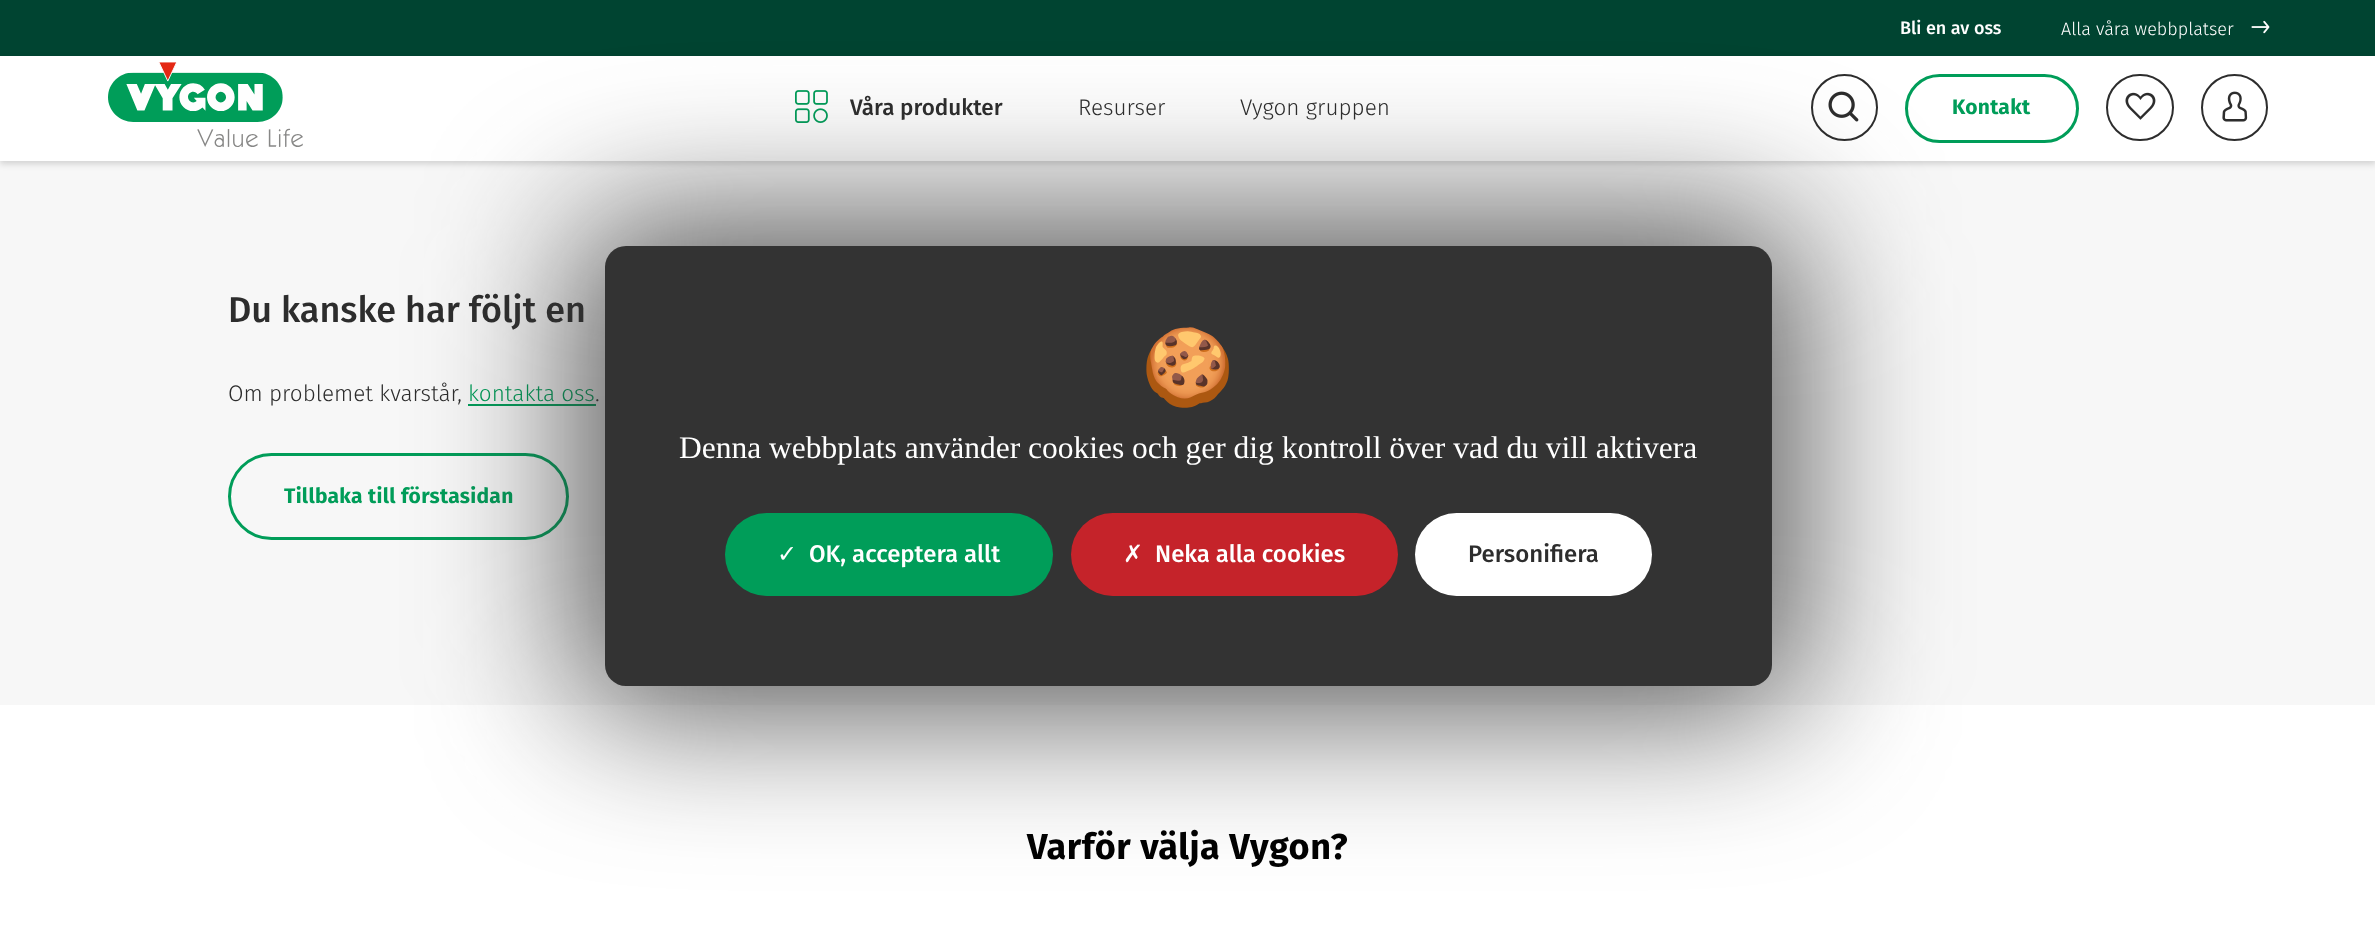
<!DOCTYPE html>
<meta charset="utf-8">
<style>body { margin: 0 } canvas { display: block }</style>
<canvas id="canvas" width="2375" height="931"></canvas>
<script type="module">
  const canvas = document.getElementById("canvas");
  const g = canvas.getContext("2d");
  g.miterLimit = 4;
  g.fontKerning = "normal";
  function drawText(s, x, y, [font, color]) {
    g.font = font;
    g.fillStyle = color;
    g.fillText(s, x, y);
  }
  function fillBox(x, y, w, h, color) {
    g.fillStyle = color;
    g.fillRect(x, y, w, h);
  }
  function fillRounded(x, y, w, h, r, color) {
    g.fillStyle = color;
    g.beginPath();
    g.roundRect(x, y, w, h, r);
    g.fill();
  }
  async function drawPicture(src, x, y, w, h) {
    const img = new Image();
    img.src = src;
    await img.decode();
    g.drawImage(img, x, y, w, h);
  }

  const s1 = ["500 18px Fira Sans", "#FFFFFF"];
  const s2 = ["300 18px Fira Sans", "#FFFFFF"];
  const s3 = ["500 22.5px Fira Sans", "#2D2D2D"];
  const s4 = ["300 22.5px Fira Sans", "#2D2D2D"];
  const s5 = ["bold 21px Fira Sans", "#009D59"];
  const s6 = ["500 36px Fira Sans", "#2D2D2D"];
  const s7 = ["300 22.5px Fira Sans", "#009D59"];
  const s8 = ["bold 36px Fira Sans", "#000000"];
  const s9 = ["75px Noto Color Emoji", "#FFFFFF"];
  const s10 = ["31.5px Liberation Serif", "#FFFFFF"];
  const s11 = ["24px DejaVu Sans", "#FFFFFF"];
  const s12 = ["500 24px Fira Sans", "#FFFFFF"];
  const s13 = ["500 24px Fira Sans", "#2D2D2D"];

  fillBox(0, 0, 2375, 931, "#F7F7F7");
  fillBox(0, 56, 2375, 105, "#FFFFFF");
  fillBox(0, 0, 2375, 56, "#004431");
  drawText("Bli en av oss", 1900, 34, s1);
  drawText("Alla våra webbplatser", 2061, 35, s2);
  await drawPicture("pic1.png", 2251, 20, 19, 14);
  g.save();
  g.beginPath();
  g.moveTo(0, 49);
  g.lineTo(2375, 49);
  g.lineTo(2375, 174);
  g.lineTo(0, 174);
  g.closePath();
  g.moveTo(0, 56);
  g.lineTo(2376, 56);
  g.lineTo(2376, 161);
  g.lineTo(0, 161);
  g.closePath();
  g.clip("evenodd");
  g.fillStyle = "rgba(0, 0, 0, 0.15)";
  g.filter = "blur(3px)";
  g.beginPath();
  g.rect(0, 59, 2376, 105);
  g.fill();
  g.filter = "none";
  g.restore();
  await drawPicture("pic2.png", 108, 62, 195, 85);
  await drawPicture("pic3.png", 795, 90, 33, 33);
  drawText("Våra produkter", 850, 115, s3);
  drawText("Resurser", 1078, 115, s4);
  drawText("Vygon gruppen", 1240, 115, s4);
  g.beginPath();
  g.arc(1844.5, 107.5, 32.5, 0, Math.PI * 2);
  g.strokeStyle = "#2D2D2D";
  g.lineWidth = 2;
  g.stroke();
  await drawPicture("pic4.png", 1828, 91, 31, 31);
  g.beginPath();
  g.roundRect(1906.5, 75.5, 171, 66, 33);
  g.strokeStyle = "#009D59";
  g.lineWidth = 3;
  g.stroke();
  g.letterSpacing = "0.3px";
  drawText("Kontakt", 1952, 114, s5);
  g.beginPath();
  g.roundRect(2107, 75, 66, 65, 32.5);
  g.strokeStyle = "#2D2D2D";
  g.lineWidth = 2;
  g.stroke();
  await drawPicture("pic5.png", 2125, 92, 31, 28);
  g.beginPath();
  g.arc(2234.5, 107.5, 32.5, 0, Math.PI * 2);
  g.stroke();
  await drawPicture("pic6.png", 2222, 91, 26, 31);
  g.letterSpacing = "0px";
  drawText("Du kanske har följt en", 228, 322, s6);
  drawText("Om problemet kvarstår,", 228, 401, s4);
  drawText("kontakta oss", 468, 401, s7);
  fillBox(468, 404, 128, 2, "#009D59");
  drawText(".", 595, 401, s4);
  g.beginPath();
  g.roundRect(229.5, 454.5, 338, 84, 42);
  g.strokeStyle = "#009D59";
  g.lineWidth = 3;
  g.stroke();
  g.letterSpacing = "0.3px";
  drawText("Tillbaka till förstasidan", 284, 503, s5);
  fillBox(0, 705, 2375, 226, "#FFFFFF");
  g.letterSpacing = "0.5px";
  drawText("Varför välja Vygon?", 1027, 859, s8);
  g.fillStyle = "rgba(51, 51, 51, 0.8)";
  g.filter = "blur(75px)";
  g.beginPath();
  g.roundRect(576, 218, 1224, 496, 50);
  g.fill();
  g.filter = "none";
  fillRounded(605, 246, 1167, 440, 21, "#333333");
  g.letterSpacing = "0px";
  drawText("🍪", 1141, 393, s9);
  drawText("Denna webbplats använder cookies och ger dig kontroll över vad du vill aktivera", 679, 458, s10);
  fillRounded(725, 513, 328, 83, 41.5, "#009D59");
  drawText("✓", 777, 562, s11);
  drawText("OK, acceptera allt", 809, 562, s12);
  fillRounded(1071, 513, 327, 83, 41.5, "#C5232A");
  drawText("✗", 1123, 562, s11);
  drawText("Neka alla cookies", 1155, 562, s12);
  fillRounded(1415, 513, 237, 83, 41.5, "#FFFFFF");
  drawText("Personifiera", 1468, 562, s13);
</script>
